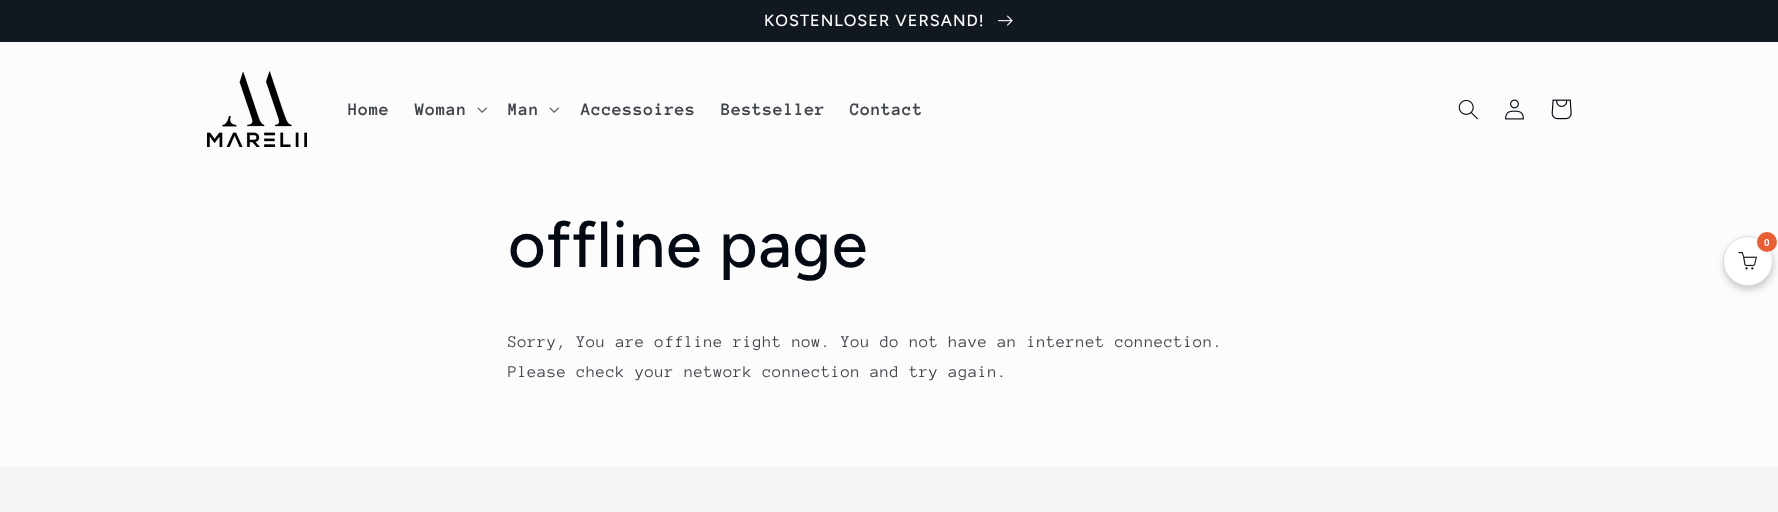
<!DOCTYPE html>
<meta charset="utf-8">
<style>body { margin: 0 } canvas { display: block }</style>
<canvas id="canvas" width="1778" height="512"></canvas>
<script type="module">
  const canvas = document.getElementById("canvas");
  const g = canvas.getContext("2d");
  g.miterLimit = 4;
  g.fontKerning = "normal";
  function drawText(s, x, y, [font, color]) {
    g.font = font;
    g.fillStyle = color;
    g.fillText(s, x, y);
  }
  function fillBox(x, y, w, h, color) {
    g.fillStyle = color;
    g.fillRect(x, y, w, h);
  }
  async function drawPicture(src, x, y, w, h) {
    const img = new Image();
    img.src = src;
    await img.decode();
    g.drawImage(img, x, y, w, h);
  }

  const s1 = ["500 16.25px Figtree", "#FCFCFC"];
  const s2 = ["bold 18px Anonymous Pro", "#41464D"];
  const s3 = ["500 65px Figtree", "#020912"];
  const s4 = ["16.8px Anonymous Pro", "#41464D"];
  const s5 = ["bold 10px Liberation Sans", "#FCFCFC"];

  fillBox(0, 0, 1778, 512, "#FCFCFC");
  fillBox(0, 41, 1778, 1, "#161C25");
  fillBox(0, 0, 1778, 41, "#111820");
  g.letterSpacing = "1.05px";
  drawText("KOSTENLOSER VERSAND!", 764, 26, s1);
  await drawPicture("pic1.png", 998, 15, 15, 11);
  await drawPicture("pic2.png", 207, 71, 100, 76);
  g.letterSpacing = "0.63px";
  drawText("Home", 348, 115, s2);
  drawText("Woman", 415, 115, s2);
  await drawPicture("pic3.png", 477, 107, 10, 6);
  drawText("Man", 508, 115, s2);
  await drawPicture("pic3.png", 549, 107, 10, 6);
  drawText("Accessoires", 581, 115, s2);
  drawText("Bestseller", 721, 115, s2);
  drawText("Contact", 850, 115, s2);
  await drawPicture("pic4.png", 1458, 99, 20, 21);
  await drawPicture("pic5.png", 1505, 99, 19, 21);
  await drawPicture("pic6.png", 1551, 99, 21, 21);
  g.letterSpacing = "0.75px";
  drawText("offline page", 508, 267, s3);
  g.letterSpacing = "0.63px";
  drawText("Sorry, You are offline right now. You do not have an internet connection.", 508, 347, s4);
  drawText("Please check your network connection and try again.", 508, 377, s4);
  g.fillStyle = "rgba(0, 0, 0, 0.08)";
  g.filter = "blur(2px)";
  g.beginPath();
  g.roundRect(1723, 240, 50, 50, 25);
  g.fill();
  g.filter = "none";
  g.fillStyle = "rgba(0, 0, 0, 0.12)";
  g.filter = "blur(5px)";
  g.beginPath();
  g.roundRect(1724, 240, 50, 50, 25);
  g.fill();
  g.filter = "none";
  g.fillStyle = "#FFFFFF";
  g.beginPath();
  g.arc(1748, 261, 24.5, 0, Math.PI * 2);
  g.fill();
  g.strokeStyle = "#DDDDDD";
  g.stroke();
  g.fillStyle = "#E75F33";
  g.beginPath();
  g.arc(1767, 242, 10, 0, Math.PI * 2);
  g.fill();
  g.letterSpacing = "0px";
  drawText("0", 1764, 246, s5);
  await drawPicture("pic7.png", 1738, 252, 19, 18);
  fillBox(0, 467, 1778, 45, "#F4F4F4");
</script>
